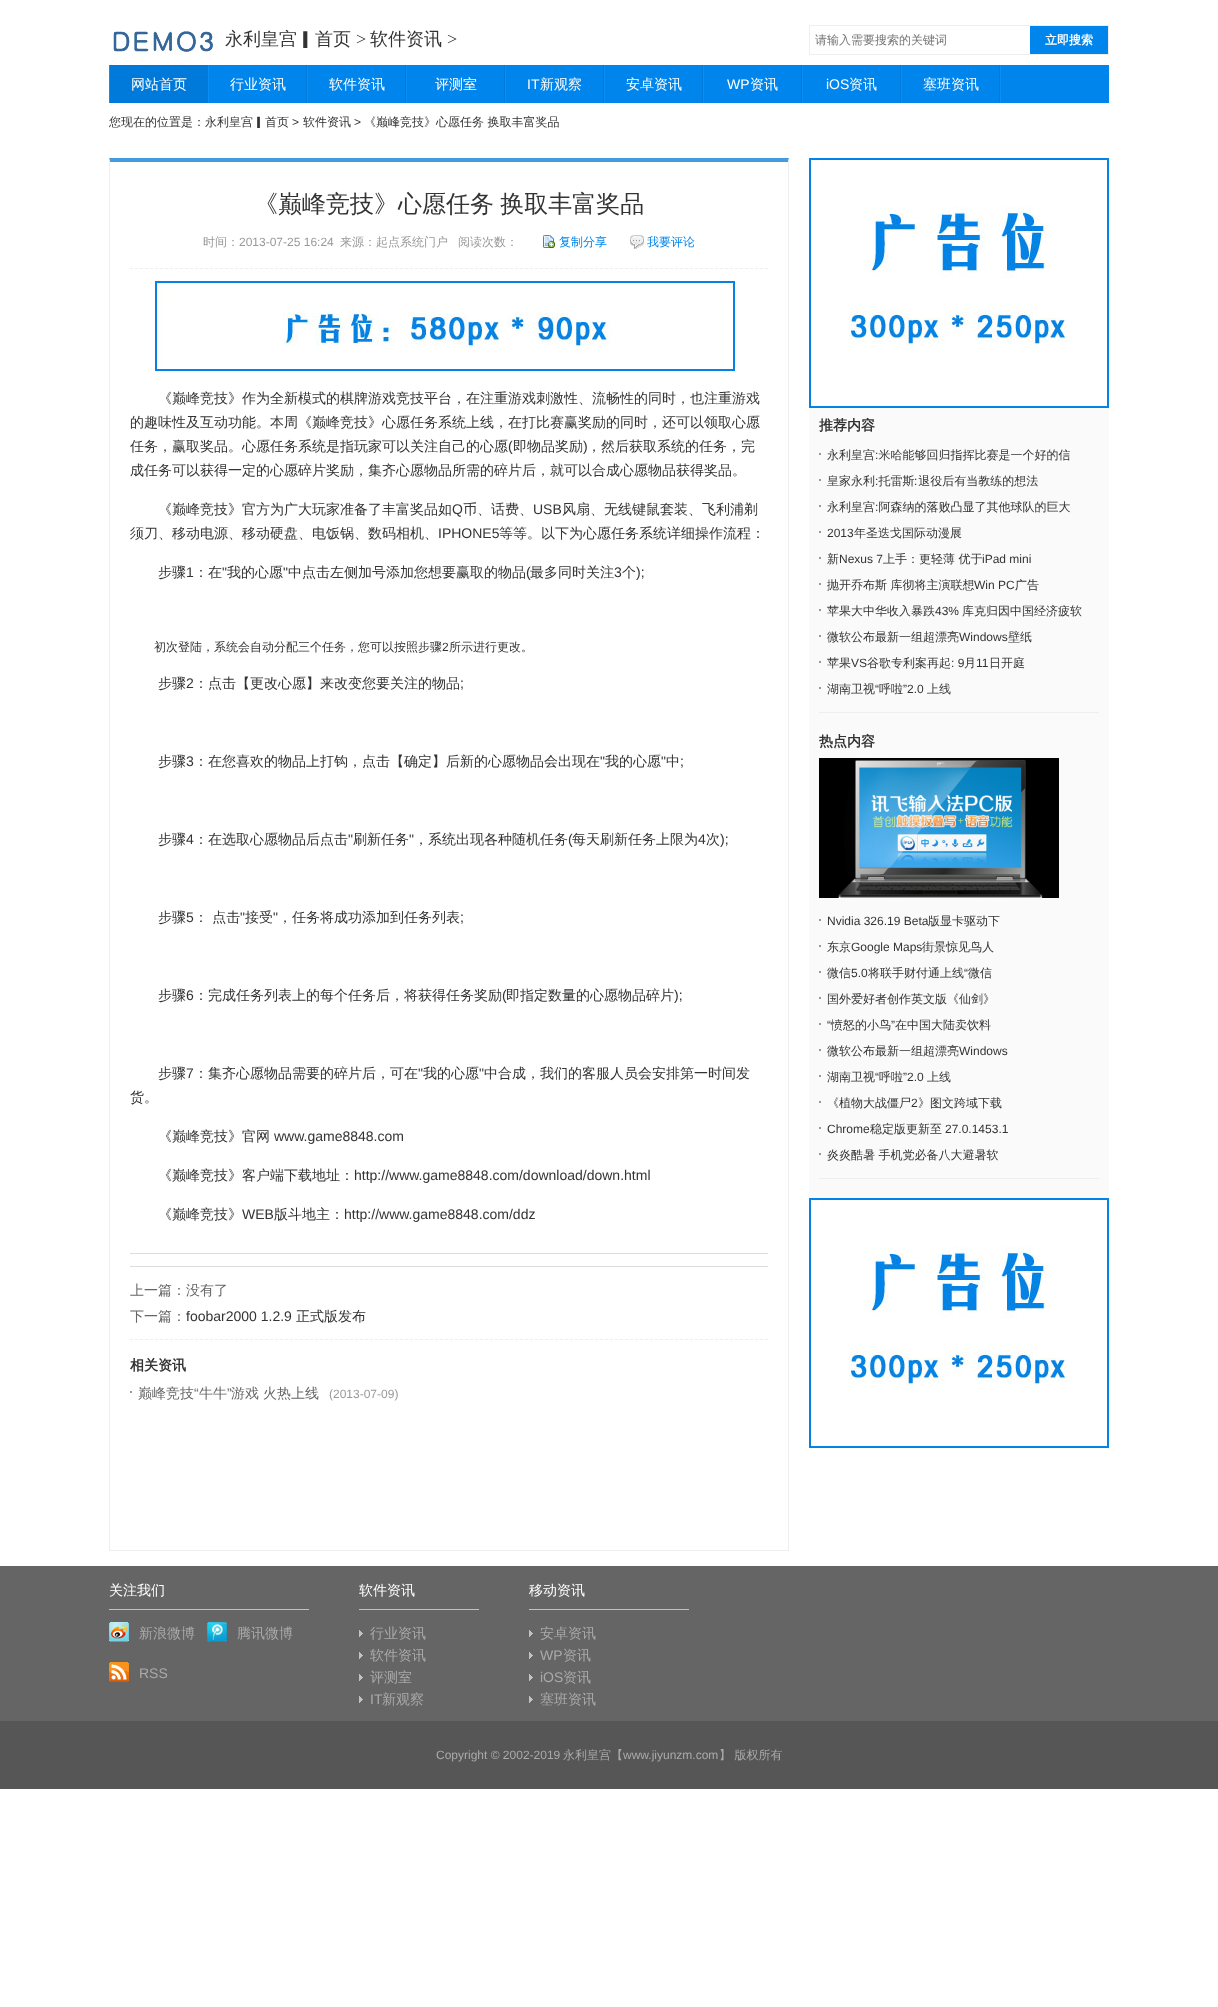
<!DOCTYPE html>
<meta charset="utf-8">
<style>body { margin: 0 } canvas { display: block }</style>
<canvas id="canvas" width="1218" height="2007"></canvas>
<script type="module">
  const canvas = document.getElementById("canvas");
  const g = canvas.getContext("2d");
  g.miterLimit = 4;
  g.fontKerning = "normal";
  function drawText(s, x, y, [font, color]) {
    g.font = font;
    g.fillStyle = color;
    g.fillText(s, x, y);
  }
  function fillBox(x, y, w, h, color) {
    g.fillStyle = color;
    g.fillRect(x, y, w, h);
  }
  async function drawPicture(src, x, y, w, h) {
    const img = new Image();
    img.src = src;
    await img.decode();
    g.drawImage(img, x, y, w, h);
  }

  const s1 = ["500 18px WenQuanYi Zen Hei", "#333333"];
  const s2 = ["18px Liberation Serif", "#333333"];
  const s3 = ["500 12px WenQuanYi Zen Hei", "#757575"];
  const s4 = ["bold 12px WenQuanYi Zen Hei", "#FFFFFF"];
  const s5 = ["500 14px WenQuanYi Zen Hei", "#FFFFFF"];
  const s6 = ["14px Liberation Sans", "#FFFFFF"];
  const s7 = ["500 12px WenQuanYi Zen Hei", "#333333"];
  const s8 = ["12px Liberation Sans", "#333333"];
  const s9 = ["500 24px WenQuanYi Zen Hei", "#333333"];
  const s10 = ["500 12px WenQuanYi Zen Hei", "#999999"];
  const s11 = ["12px Liberation Sans", "#999999"];
  const s12 = ["500 12px WenQuanYi Zen Hei", "#0085EC"];
  const s13 = ["500 14px WenQuanYi Zen Hei", "#333333"];
  const s14 = ["14px Liberation Sans", "#333333"];
  const s15 = ["500 14px WenQuanYi Zen Hei", "#666666"];
  const s16 = ["bold 14px WenQuanYi Zen Hei", "#333333"];
  const s17 = ["14px Liberation Sans", "#666666"];
  const s18 = ["500 14px WenQuanYi Zen Hei", "#AAAAAA"];
  const s19 = ["14px Liberation Sans", "#AAAAAA"];
  const s20 = ["12px Liberation Sans", "#AAAAAA"];
  const s21 = ["500 12px WenQuanYi Zen Hei", "#AAAAAA"];

  fillBox(0, 0, 1218, 2007, "#FFFFFF");
  await drawPicture("pic1.png", 113, 31, 100, 21);
  drawText("永利皇宫▎首页", 225, 45, s1);
  drawText(">", 356, 45, s2);
  drawText("软件资讯", 370, 45, s1);
  drawText(">", 447, 45, s2);
  g.strokeStyle = "#EEEEEE";
  g.strokeRect(809.5, 25.5, 299, 29);
  drawText("请输入需要搜索的关键词", 815, 44, s3);
  fillBox(1030, 26, 78, 28, "#0085EC");
  drawText("立即搜索", 1045, 44, s4);
  fillBox(209, 65, 900, 38, "#0085EC");
  fillBox(1000, 65, 1, 38, "#0A8FF6");
  fillBox(110, 65, 98, 38, "#007ADA");
  fillBox(109, 65, 1, 38, "#0A8FF6");
  drawText("网站首页", 131, 89, s5);
  fillBox(306, 65, 1, 38, "#007ADA");
  fillBox(208, 65, 1, 38, "#0A8FF6");
  drawText("行业资讯", 230, 89, s5);
  fillBox(405, 65, 1, 38, "#007ADA");
  fillBox(307, 65, 1, 38, "#0A8FF6");
  drawText("软件资讯", 329, 89, s5);
  fillBox(504, 65, 1, 38, "#007ADA");
  fillBox(406, 65, 1, 38, "#0A8FF6");
  drawText("评测室", 435, 89, s5);
  fillBox(603, 65, 1, 38, "#007ADA");
  fillBox(505, 65, 1, 38, "#0A8FF6");
  drawText("IT", 527, 89, s6);
  drawText("新观察", 540, 89, s5);
  fillBox(702, 65, 1, 38, "#007ADA");
  fillBox(604, 65, 1, 38, "#0A8FF6");
  drawText("安卓资讯", 626, 89, s5);
  fillBox(801, 65, 1, 38, "#007ADA");
  fillBox(703, 65, 1, 38, "#0A8FF6");
  drawText("WP", 727, 89, s6);
  drawText("资讯", 750, 89, s5);
  fillBox(900, 65, 1, 38, "#007ADA");
  fillBox(802, 65, 1, 38, "#0A8FF6");
  drawText("iOS", 826, 89, s6);
  drawText("资讯", 849, 89, s5);
  fillBox(999, 65, 1, 38, "#007ADA");
  fillBox(901, 65, 1, 38, "#0A8FF6");
  drawText("塞班资讯", 923, 89, s5);
  drawText("您现在的位置是：永利皇宫▎首页", 109, 126, s7);
  drawText(">", 292, 126, s8);
  drawText("软件资讯", 303, 126, s7);
  drawText(">", 354, 126, s8);
  drawText("《巅峰竞技》心愿任务 换取丰富奖品", 364, 126, s7);
  g.fillStyle = "#459BDD";
  g.beginPath();
  g.moveTo(109, 158);
  g.lineTo(789, 158);
  g.lineTo(788, 162);
  g.lineTo(110, 162);
  g.closePath();
  g.fill();
  g.fillStyle = "#EEEEEE";
  g.beginPath();
  g.moveTo(789, 158);
  g.lineTo(789, 1551);
  g.lineTo(788, 1550);
  g.lineTo(788, 162);
  g.closePath();
  g.fill();
  fillBox(109, 1550, 680, 1, "#EEEEEE");
  g.beginPath();
  g.moveTo(109, 1551);
  g.lineTo(109, 158);
  g.lineTo(110, 162);
  g.lineTo(110, 1550);
  g.closePath();
  g.fill();
  g.beginPath();
  g.moveTo(130, 268.5);
  g.lineTo(768, 268.5);
  g.setLineDash([3, 2]);
  g.stroke();
  g.wordSpacing = "-1px";
  drawText("《巅峰竞技》心愿任务 换取丰富奖品", 254, 212, s9);
  g.wordSpacing = "0px";
  drawText("时间：", 203, 246, s10);
  drawText("2013-07-25 16:24", 239, 246, s11);
  drawText("来源：起点系统门户", 340, 246, s10);
  drawText("阅读次数：", 458, 246, s10);
  await drawPicture("pic2.png", 543, 235, 12, 13);
  drawText("复制分享", 559, 246, s12);
  await drawPicture("pic3.png", 630, 235, 14, 14);
  drawText("我要评论", 647, 246, s12);
  await drawPicture("pic4.png", 155, 281, 580, 90);
  fillBox(130, 1266, 638, 1, "#DDDDDD");
  fillBox(130, 1253, 638, 1, "#DDDDDD");
  drawText("《巅峰竞技》作为全新模式的棋牌游戏竞技平台，在注重游戏刺激性、流畅性的同时，也注重游戏", 158, 403, s13);
  drawText("的趣味性及互动功能。本周《巅峰竞技》心愿任务系统上线，在打比赛赢奖励的同时，还可以领取心愿", 130, 427, s13);
  drawText("任务，赢取奖品。心愿任务系统是指玩家可以关注自己的心愿", 130, 451, s13);
  drawText("(", 508, 451, s14);
  drawText("即物品奖励", 513, 451, s13);
  drawText(")", 583, 451, s14);
  drawText("，然后获取系统的任务，完", 587, 451, s13);
  drawText("成任务可以获得一定的心愿碎片奖励，集齐心愿物品所需的碎片后，就可以合成心愿物品获得奖品。", 130, 475, s13);
  drawText("《巅峰竞技》官方为广大玩家准备了丰富奖品如", 158, 514, s13);
  drawText("Q", 452, 514, s14);
  drawText("币、话费、", 463, 514, s13);
  drawText("USB", 533, 514, s14);
  drawText("风扇、无线键鼠套装、飞利浦剃", 562, 514, s13);
  drawText("须刀、移动电源、移动硬盘、电饭锅、数码相机、", 130, 538, s13);
  drawText("IPHONE5", 438, 538, s14);
  drawText("等等。以下为心愿任务系统详细操作流程：", 499, 538, s13);
  drawText("步骤", 158, 577, s13);
  drawText("1", 186, 577, s14);
  drawText("：在", 194, 577, s13);
  drawText("\"", 222, 577, s14);
  drawText("我的心愿", 227, 577, s13);
  drawText("\"", 283, 577, s14);
  drawText("中点击左侧加号添加您想要赢取的物品", 288, 577, s13);
  drawText("(", 526, 577, s14);
  drawText("最多同时关注", 530, 577, s13);
  drawText("3", 614, 577, s14);
  drawText("个", 622, 577, s13);
  drawText(");", 636, 577, s14);
  drawText("初次登陆，系统会自动分配三个任务，您可以按照步骤", 154, 651, s7);
  drawText("2", 442, 651, s8);
  drawText("所示进行更改。", 449, 651, s7);
  drawText("步骤", 158, 688, s13);
  drawText("2", 186, 688, s14);
  drawText("：点击【更改心愿】来改变您要关注的物品", 194, 688, s13);
  drawText(";", 460, 688, s14);
  drawText("步骤", 158, 766, s13);
  drawText("3", 186, 766, s14);
  drawText("：在您喜欢的物品上打钩，点击【确定】后新的心愿物品会出现在", 194, 766, s13);
  drawText("\"", 600, 766, s14);
  drawText("我的心愿", 605, 766, s13);
  drawText("\"", 661, 766, s14);
  drawText("中", 666, 766, s13);
  drawText(";", 680, 766, s14);
  drawText("步骤", 158, 844, s13);
  drawText("4", 186, 844, s14);
  drawText("：在选取心愿物品后点击", 194, 844, s13);
  drawText("\"", 348, 844, s14);
  drawText("刷新任务", 353, 844, s13);
  drawText("\"", 409, 844, s14);
  drawText("，系统出现各种随机任务", 414, 844, s13);
  drawText("(", 568, 844, s14);
  drawText("每天刷新任务上限为", 572, 844, s13);
  drawText("4", 698, 844, s14);
  drawText("次", 706, 844, s13);
  drawText(");", 720, 844, s14);
  drawText("步骤", 158, 922, s13);
  drawText("5", 186, 922, s14);
  drawText("： 点击", 194, 922, s13);
  drawText("\"", 240, 922, s14);
  drawText("接受", 245, 922, s13);
  drawText("\"", 273, 922, s14);
  drawText("，任务将成功添加到任务列表", 278, 922, s13);
  drawText(";", 460, 922, s14);
  drawText("步骤", 158, 1000, s13);
  drawText("6", 186, 1000, s14);
  drawText("：完成任务列表上的每个任务后，将获得任务奖励", 194, 1000, s13);
  drawText("(", 502, 1000, s14);
  drawText("即指定数量的心愿物品碎片", 506, 1000, s13);
  drawText(");", 674, 1000, s14);
  drawText("步骤", 158, 1078, s13);
  drawText("7", 186, 1078, s14);
  drawText("：集齐心愿物品需要的碎片后，可在", 194, 1078, s13);
  drawText("\"", 418, 1078, s14);
  drawText("我的心愿", 423, 1078, s13);
  drawText("\"", 479, 1078, s14);
  drawText("中合成，我们的客服人员会安排第一时间发", 484, 1078, s13);
  drawText("货。", 130, 1102, s13);
  drawText("《巅峰竞技》官网", 158, 1141, s13);
  drawText("www.game8848.com", 274, 1141, s14);
  drawText("《巅峰竞技》客户端下载地址：", 158, 1180, s13);
  drawText("http://www.game8848.com/download/down.html", 354, 1180, s14);
  drawText("《巅峰竞技》", 158, 1219, s13);
  drawText("WEB", 242, 1219, s14);
  drawText("版斗地主：", 274, 1219, s13);
  drawText("http://www.game8848.com/ddz", 344, 1219, s14);
  drawText("上一篇：没有了", 130, 1295, s15);
  drawText("下一篇：", 130, 1321, s15);
  drawText("foobar2000 1.2.9", 186, 1321, s14);
  drawText("正式版发布", 296, 1321, s13);
  g.beginPath();
  g.moveTo(130, 1339.5);
  g.lineTo(768, 1339.5);
  g.stroke();
  drawText("相关资讯", 130, 1370, s16);
  fillBox(130, 1391, 2, 2, "#999999");
  drawText("巅峰竞技", 138, 1398, s15);
  drawText("“", 194, 1398, s17);
  drawText("牛牛", 199, 1398, s15);
  drawText("”", 227, 1398, s17);
  drawText("游戏", 231, 1398, s15);
  drawText("火热上线", 263, 1398, s15);
  drawText("(2013-07-09)", 329, 1398, s11);
  fillBox(809, 408, 300, 790, "#FAFAFA");
  await drawPicture("pic5.png", 809, 158, 300, 250);
  drawText("推荐内容", 819, 430, s16);
  fillBox(819, 453, 2, 2, "#999999");
  drawText("永利皇宫 米哈能够回归指挥比赛是一个好的信", 827, 459, s7);
  drawText(":", 875, 459, s8);
  fillBox(819, 479, 2, 2, "#999999");
  drawText("皇家永利 托雷斯 退役后有当教练的想法", 827, 485, s7);
  drawText(":", 875, 485, s8);
  drawText(":", 914, 485, s8);
  fillBox(819, 505, 2, 2, "#999999");
  drawText("永利皇宫 阿森纳的落败凸显了其他球队的巨大", 827, 511, s7);
  drawText(":", 875, 511, s8);
  fillBox(819, 531, 2, 2, "#999999");
  drawText("2013", 827, 537, s8);
  drawText("年圣迭戈国际动漫展", 854, 537, s7);
  fillBox(819, 557, 2, 2, "#999999");
  drawText("新", 827, 563, s7);
  drawText("Nexus 7", 839, 563, s8);
  drawText("上手：更轻薄 优于", 883, 563, s7);
  drawText("iPad mini", 982, 563, s8);
  fillBox(819, 583, 2, 2, "#999999");
  drawText("抛开乔布斯 库彻将主演联想", 827, 589, s7);
  drawText("Win PC", 974, 589, s8);
  drawText("广告", 1015, 589, s7);
  fillBox(819, 609, 2, 2, "#999999");
  drawText("苹果大中华收入暴跌", 827, 615, s7);
  drawText("43%", 935, 615, s8);
  drawText("库克归因中国经济疲软", 962, 615, s7);
  fillBox(819, 635, 2, 2, "#999999");
  drawText("微软公布最新一组超漂亮", 827, 641, s7);
  drawText("Windows", 959, 641, s8);
  drawText("壁纸", 1008, 641, s7);
  fillBox(819, 661, 2, 2, "#999999");
  drawText("苹果", 827, 667, s7);
  drawText("VS", 851, 667, s8);
  drawText("谷歌专利案再起", 867, 667, s7);
  drawText(": 9", 951, 667, s8);
  drawText("月", 964, 667, s7);
  drawText("11", 976, 667, s8);
  drawText("日开庭", 989, 667, s7);
  fillBox(819, 687, 2, 2, "#999999");
  drawText("湖南卫视", 827, 693, s7);
  drawText("“", 875, 693, s8);
  drawText("呼啦", 879, 693, s7);
  drawText("”2.0", 903, 693, s8);
  drawText("上线", 927, 693, s7);
  fillBox(819, 712, 280, 1, "#EEEEEE");
  drawText("热点内容", 819, 746, s16);
  await drawPicture("pic6.png", 819, 758, 240, 140);
  fillBox(819, 919, 2, 2, "#999999");
  drawText("Nvidia 326.19 Beta", 827, 925, s8);
  drawText("版显卡驱动下", 928, 925, s7);
  fillBox(819, 945, 2, 2, "#999999");
  drawText("东京", 827, 951, s7);
  drawText("Google Maps", 851, 951, s8);
  drawText("街景惊见鸟人", 922, 951, s7);
  fillBox(819, 971, 2, 2, "#999999");
  drawText("微信", 827, 977, s7);
  drawText("5.0", 851, 977, s8);
  drawText("将联手财付通上线", 868, 977, s7);
  drawText("“", 964, 977, s8);
  drawText("微信", 968, 977, s7);
  fillBox(819, 997, 2, 2, "#999999");
  drawText("国外爱好者创作英文版《仙剑》", 827, 1003, s7);
  fillBox(819, 1023, 2, 2, "#999999");
  drawText("“", 827, 1029, s8);
  drawText("愤怒的小鸟", 831, 1029, s7);
  drawText("”", 891, 1029, s8);
  drawText("在中国大陆卖饮料", 895, 1029, s7);
  fillBox(819, 1049, 2, 2, "#999999");
  drawText("微软公布最新一组超漂亮", 827, 1055, s7);
  drawText("Windows", 959, 1055, s8);
  fillBox(819, 1075, 2, 2, "#999999");
  drawText("湖南卫视", 827, 1081, s7);
  drawText("“", 875, 1081, s8);
  drawText("呼啦", 879, 1081, s7);
  drawText("”2.0", 903, 1081, s8);
  drawText("上线", 927, 1081, s7);
  fillBox(819, 1101, 2, 2, "#999999");
  drawText("《植物大战僵尸", 827, 1107, s7);
  drawText("2", 911, 1107, s8);
  drawText("》图文跨域下载", 918, 1107, s7);
  fillBox(819, 1127, 2, 2, "#999999");
  drawText("Chrome", 827, 1133, s8);
  drawText("稳定版更新至", 870, 1133, s7);
  drawText("27.0.1453.1", 945, 1133, s8);
  fillBox(819, 1153, 2, 2, "#999999");
  drawText("炎炎酷暑 手机党必备八大避暑软", 827, 1159, s7);
  fillBox(819, 1178, 280, 1, "#EEEEEE");
  await drawPicture("pic5.png", 809, 1198, 300, 250);
  fillBox(0, 1566, 1218, 155, "#656565");
  fillBox(109, 1609, 200, 1, "#C1C1C1");
  drawText("关注我们", 109, 1595, s5);
  await drawPicture("pic7.png", 109, 1622, 20, 20);
  drawText("新浪微博", 139, 1638, s18);
  await drawPicture("pic8.png", 207, 1622, 20, 20);
  drawText("腾讯微博", 237, 1638, s18);
  await drawPicture("pic9.png", 109, 1662, 20, 20);
  drawText("RSS", 139, 1678, s19);
  fillBox(359, 1609, 120, 1, "#C1C1C1");
  drawText("软件资讯", 359, 1595, s5);
  await drawPicture("pic10.png", 359, 1630, 4, 7);
  drawText("行业资讯", 370, 1638, s18);
  await drawPicture("pic10.png", 359, 1652, 4, 7);
  drawText("软件资讯", 370, 1660, s18);
  await drawPicture("pic10.png", 359, 1674, 4, 7);
  drawText("评测室", 370, 1682, s18);
  await drawPicture("pic10.png", 359, 1696, 4, 7);
  drawText("IT", 370, 1704, s19);
  drawText("新观察", 382, 1704, s18);
  fillBox(529, 1609, 160, 1, "#C1C1C1");
  drawText("移动资讯", 529, 1595, s5);
  await drawPicture("pic10.png", 529, 1630, 4, 7);
  drawText("安卓资讯", 540, 1638, s18);
  await drawPicture("pic10.png", 529, 1652, 4, 7);
  drawText("WP", 540, 1660, s19);
  drawText("资讯", 563, 1660, s18);
  await drawPicture("pic10.png", 529, 1674, 4, 7);
  drawText("iOS", 540, 1682, s19);
  drawText("资讯", 563, 1682, s18);
  await drawPicture("pic10.png", 529, 1696, 4, 7);
  drawText("塞班资讯", 540, 1704, s18);
  fillBox(0, 1721, 1218, 68, "#565656");
  drawText("Copyright © 2002-2019", 436, 1759, s20);
  drawText("永利皇宫【", 563, 1759, s21);
  drawText("www.jiyunzm.com", 623, 1759, s20);
  drawText("】 版权所有", 719, 1759, s21);
</script>
